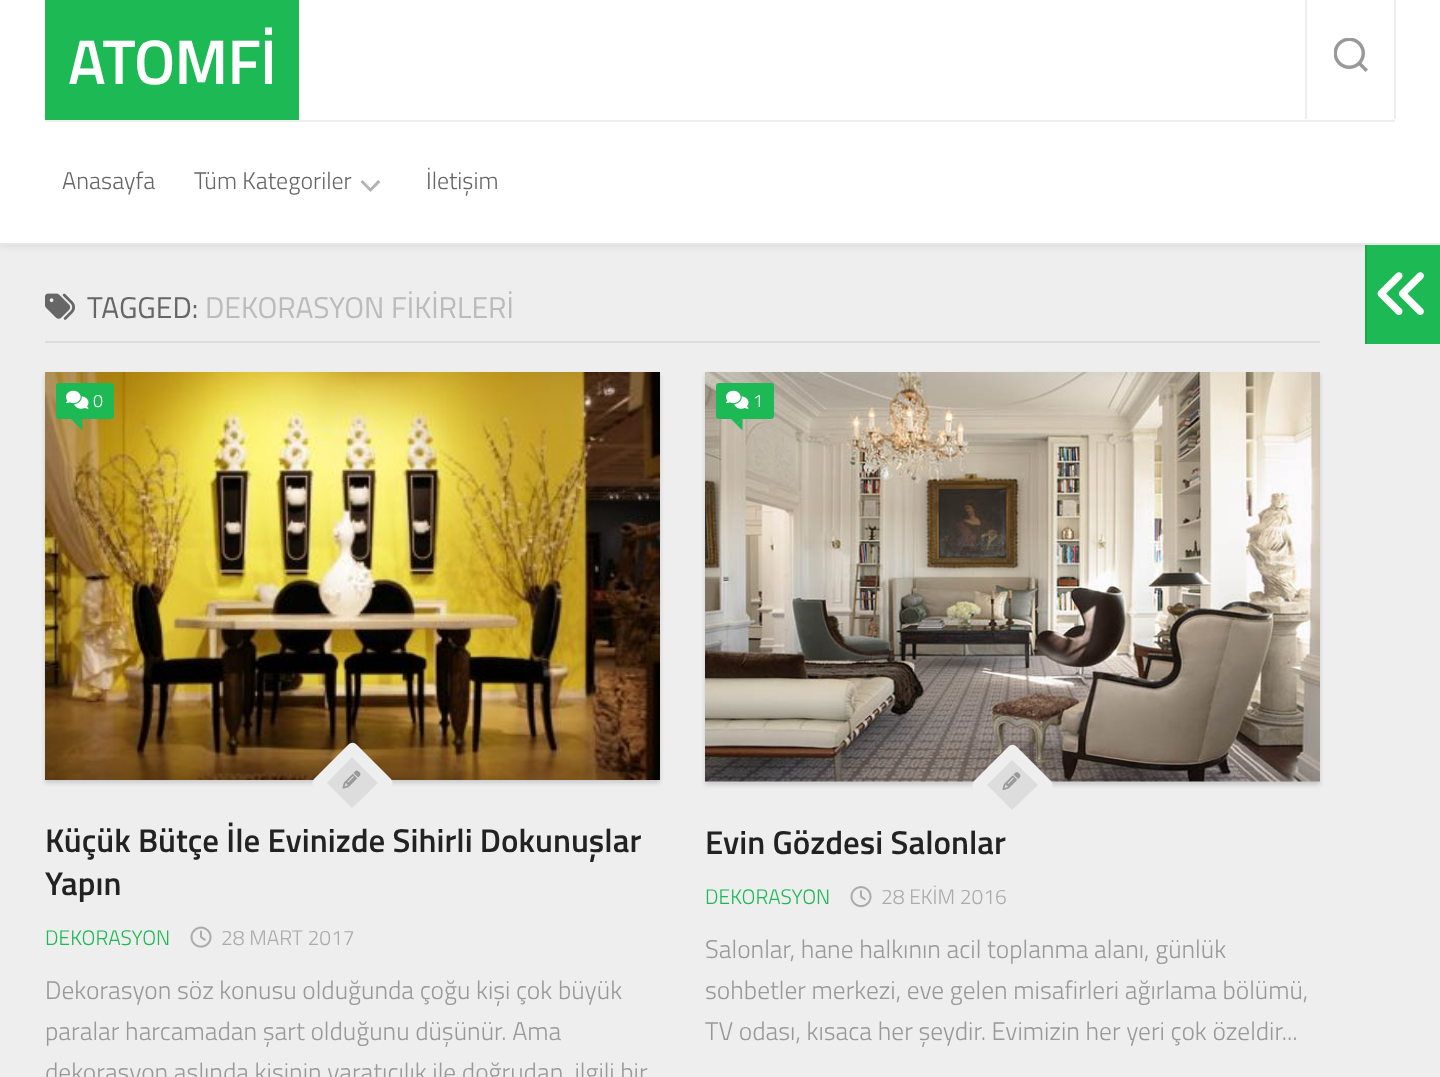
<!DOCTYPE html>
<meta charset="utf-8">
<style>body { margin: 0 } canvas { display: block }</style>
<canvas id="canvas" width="1440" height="1077"></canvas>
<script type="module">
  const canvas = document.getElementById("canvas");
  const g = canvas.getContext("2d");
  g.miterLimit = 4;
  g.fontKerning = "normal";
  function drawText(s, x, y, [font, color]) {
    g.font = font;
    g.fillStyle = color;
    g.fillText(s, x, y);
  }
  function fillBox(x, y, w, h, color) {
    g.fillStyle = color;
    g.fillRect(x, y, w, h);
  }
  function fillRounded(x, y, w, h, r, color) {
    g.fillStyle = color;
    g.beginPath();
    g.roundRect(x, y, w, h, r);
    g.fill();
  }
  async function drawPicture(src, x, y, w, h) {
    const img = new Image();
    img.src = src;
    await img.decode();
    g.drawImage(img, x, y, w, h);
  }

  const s1 = ["600 63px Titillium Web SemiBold", "#FFFFFF"];
  const s2 = ["300 24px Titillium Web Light", "#666666"];
  const s3 = ["30px Titillium Web", "#666666"];
  const s4 = ["30px Titillium Web", "#BBBBBB"];
  const s5 = ["300 18px Titillium Web Light", "#FFFFFF"];
  const s6 = ["600 33px Titillium Web SemiBold", "#222222"];
  const s7 = ["300 21px Titillium Web Light", "#1DB954"];
  const s8 = ["300 21px Titillium Web Light", "#AAAAAA"];
  const s9 = ["300 25.5px Titillium Web Light", "#999999"];

  fillBox(0, 0, 1440, 1077, "#EEEEEE");
  g.fillStyle = "rgba(0, 0, 0, 0.1)";
  g.filter = "blur(4px)";
  g.beginPath();
  g.rect(0, 0, 1440, 245);
  g.fill();
  g.filter = "none";
  fillBox(0, 0, 1440, 243, "#FFFFFF");
  fillBox(0, 243, 1440, 2, "#E6E6E6");
  fillBox(45, 0, 254, 120, "#1DB954");
  g.letterSpacing = "-0.75px";
  drawText("ATOMFİ", 68, 84, s1);
  fillBox(45, 120, 1350, 2, "#EEEEEE");
  g.letterSpacing = "0px";
  drawText("Anasayfa", 62, 189, s2);
  drawText("Tüm Kategoriler", 194, 189, s2);
  g.fillStyle = "#B3B3B3";
  g.beginPath();
  g.moveTo(370.5, 188);
  g.lineTo(378, 180);
  g.lineTo(380.5, 182);
  g.lineTo(370.5, 192);
  g.lineTo(360.5, 182);
  g.lineTo(362.5, 180);
  g.closePath();
  g.fill("evenodd");
  drawText("İletişim", 426, 189, s2);
  fillBox(1394, 0, 2, 119, "#EEEEEE");
  fillBox(1305, 0, 2, 119, "#EEEEEE");
  await drawPicture("pic1.png", 1334, 38, 34, 34);
  fillBox(45, 341, 1275, 2, "#DDDDDD");
  await drawPicture("pic2.png", 45, 293, 30, 27);
  drawText("TAGGED:", 87, 318, s3);
  drawText("DEKORASYON FİKİRLERİ", 205, 318, s4);
  g.fillStyle = "rgba(0, 0, 0, 0.15)";
  g.filter = "blur(2px)";
  g.beginPath();
  g.rect(45, 375, 615, 408);
  g.fill();
  g.filter = "none";
  await drawPicture("pic3.png", 45, 372, 615, 408);
  fillRounded(56, 383, 58, 36, 3, "#1DB954");
  await drawPicture("pic4.png", 66, 390, 23, 19);
  drawText("0", 93, 407, s5);
  g.fillStyle = "#1DB954";
  g.beginPath();
  g.moveTo(70.5, 418.5);
  g.lineTo(82.5, 418.5);
  g.lineTo(76.5, 424.5);
  g.closePath();
  g.fill();
  g.beginPath();
  g.moveTo(82.5, 418.5);
  g.lineTo(82.5, 430.5);
  g.lineTo(76.5, 424.5);
  g.closePath();
  g.fill();
  drawText("Küçük Bütçe İle Evinizde Sihirli Dokunuşlar", 45, 852, s6);
  g.fillStyle = "#EEEEEE";
  g.beginPath();
  g.moveTo(357, 745);
  g.lineTo(391, 779);
  g.bezierCurveTo(393, 781, 393, 785, 391, 787);
  g.lineTo(357, 821);
  g.bezierCurveTo(354, 823, 351, 823, 348, 821);
  g.lineTo(314, 787);
  g.bezierCurveTo(312, 785, 312, 781, 314, 779);
  g.lineTo(348, 745);
  g.bezierCurveTo(351, 742, 354, 742, 357, 745);
  g.closePath();
  g.fill();
  g.fillStyle = "#DDDDDD";
  g.beginPath();
  g.moveTo(352, 757);
  g.lineTo(378, 783);
  g.lineTo(352, 808);
  g.lineTo(327, 783);
  g.closePath();
  g.fill();
  await drawPicture("pic5.png", 342, 770, 19, 19);
  drawText("Yapın", 45, 895, s6);
  drawText("DEKORASYON", 45, 945, s7);
  await drawPicture("pic6.png", 190, 926, 22, 22);
  drawText("28 MART 2017", 221, 945, s8);
  drawText("Dekorasyon söz konusu olduğunda çoğu kişi çok büyük", 45, 999, s9);
  drawText("paralar harcamadan şart olduğunu düşünür. Ama", 45, 1040, s9);
  drawText("dekorasyon aslında kişinin yaratıcılık ile doğrudan  ilgili bir", 45, 1081, s9);
  g.fillStyle = "rgba(0, 0, 0, 0.15)";
  g.filter = "blur(2px)";
  g.beginPath();
  g.rect(705, 375, 615, 410);
  g.fill();
  g.filter = "none";
  await drawPicture("pic7.png", 705, 372, 615, 410);
  fillRounded(716, 383, 58, 36, 3, "#1DB954");
  await drawPicture("pic4.png", 726, 390, 23, 19);
  drawText("1", 753, 407, s5);
  g.fillStyle = "#1DB954";
  g.beginPath();
  g.moveTo(730.5, 418.5);
  g.lineTo(742.5, 418.5);
  g.lineTo(736.5, 424.5);
  g.closePath();
  g.fill();
  g.beginPath();
  g.moveTo(742.5, 418.5);
  g.lineTo(742.5, 430.5);
  g.lineTo(736.5, 424.5);
  g.closePath();
  g.fill();
  g.fillStyle = "#EEEEEE";
  g.beginPath();
  g.moveTo(1017, 747);
  g.lineTo(1051, 781);
  g.bezierCurveTo(1053, 783, 1053, 787, 1051, 789);
  g.lineTo(1017, 823);
  g.bezierCurveTo(1014, 826, 1011, 826, 1008, 823);
  g.lineTo(974, 789);
  g.bezierCurveTo(972, 787, 972, 783, 974, 781);
  g.lineTo(1008, 747);
  g.bezierCurveTo(1011, 744, 1014, 744, 1017, 747);
  g.closePath();
  g.fill();
  g.fillStyle = "#DDDDDD";
  g.beginPath();
  g.moveTo(1012, 760);
  g.lineTo(1038, 785);
  g.lineTo(1012, 810);
  g.lineTo(987, 785);
  g.closePath();
  g.fill();
  await drawPicture("pic8.png", 1002, 772, 19, 18);
  drawText("Evin Gözdesi Salonlar", 705, 854, s6);
  drawText("DEKORASYON", 705, 904, s7);
  await drawPicture("pic9.png", 850, 886, 22, 22);
  drawText("28 EKİM 2016", 881, 904, s8);
  drawText("Salonlar, hane halkının acil toplanma alanı, günlük", 705, 958, s9);
  drawText("sohbetler merkezi, eve gelen misafirleri ağırlama bölümü,", 705, 999, s9);
  drawText("TV odası, kısaca her şeydir. Evimizin her yeri çok özeldir...", 705, 1040, s9);
  fillBox(1367, 245, 73, 99, "#1DB954");
  fillBox(1365, 245, 2, 99, "#1AA74C");
  await drawPicture("pic10.png", 1377, 272, 47, 43);
</script>
